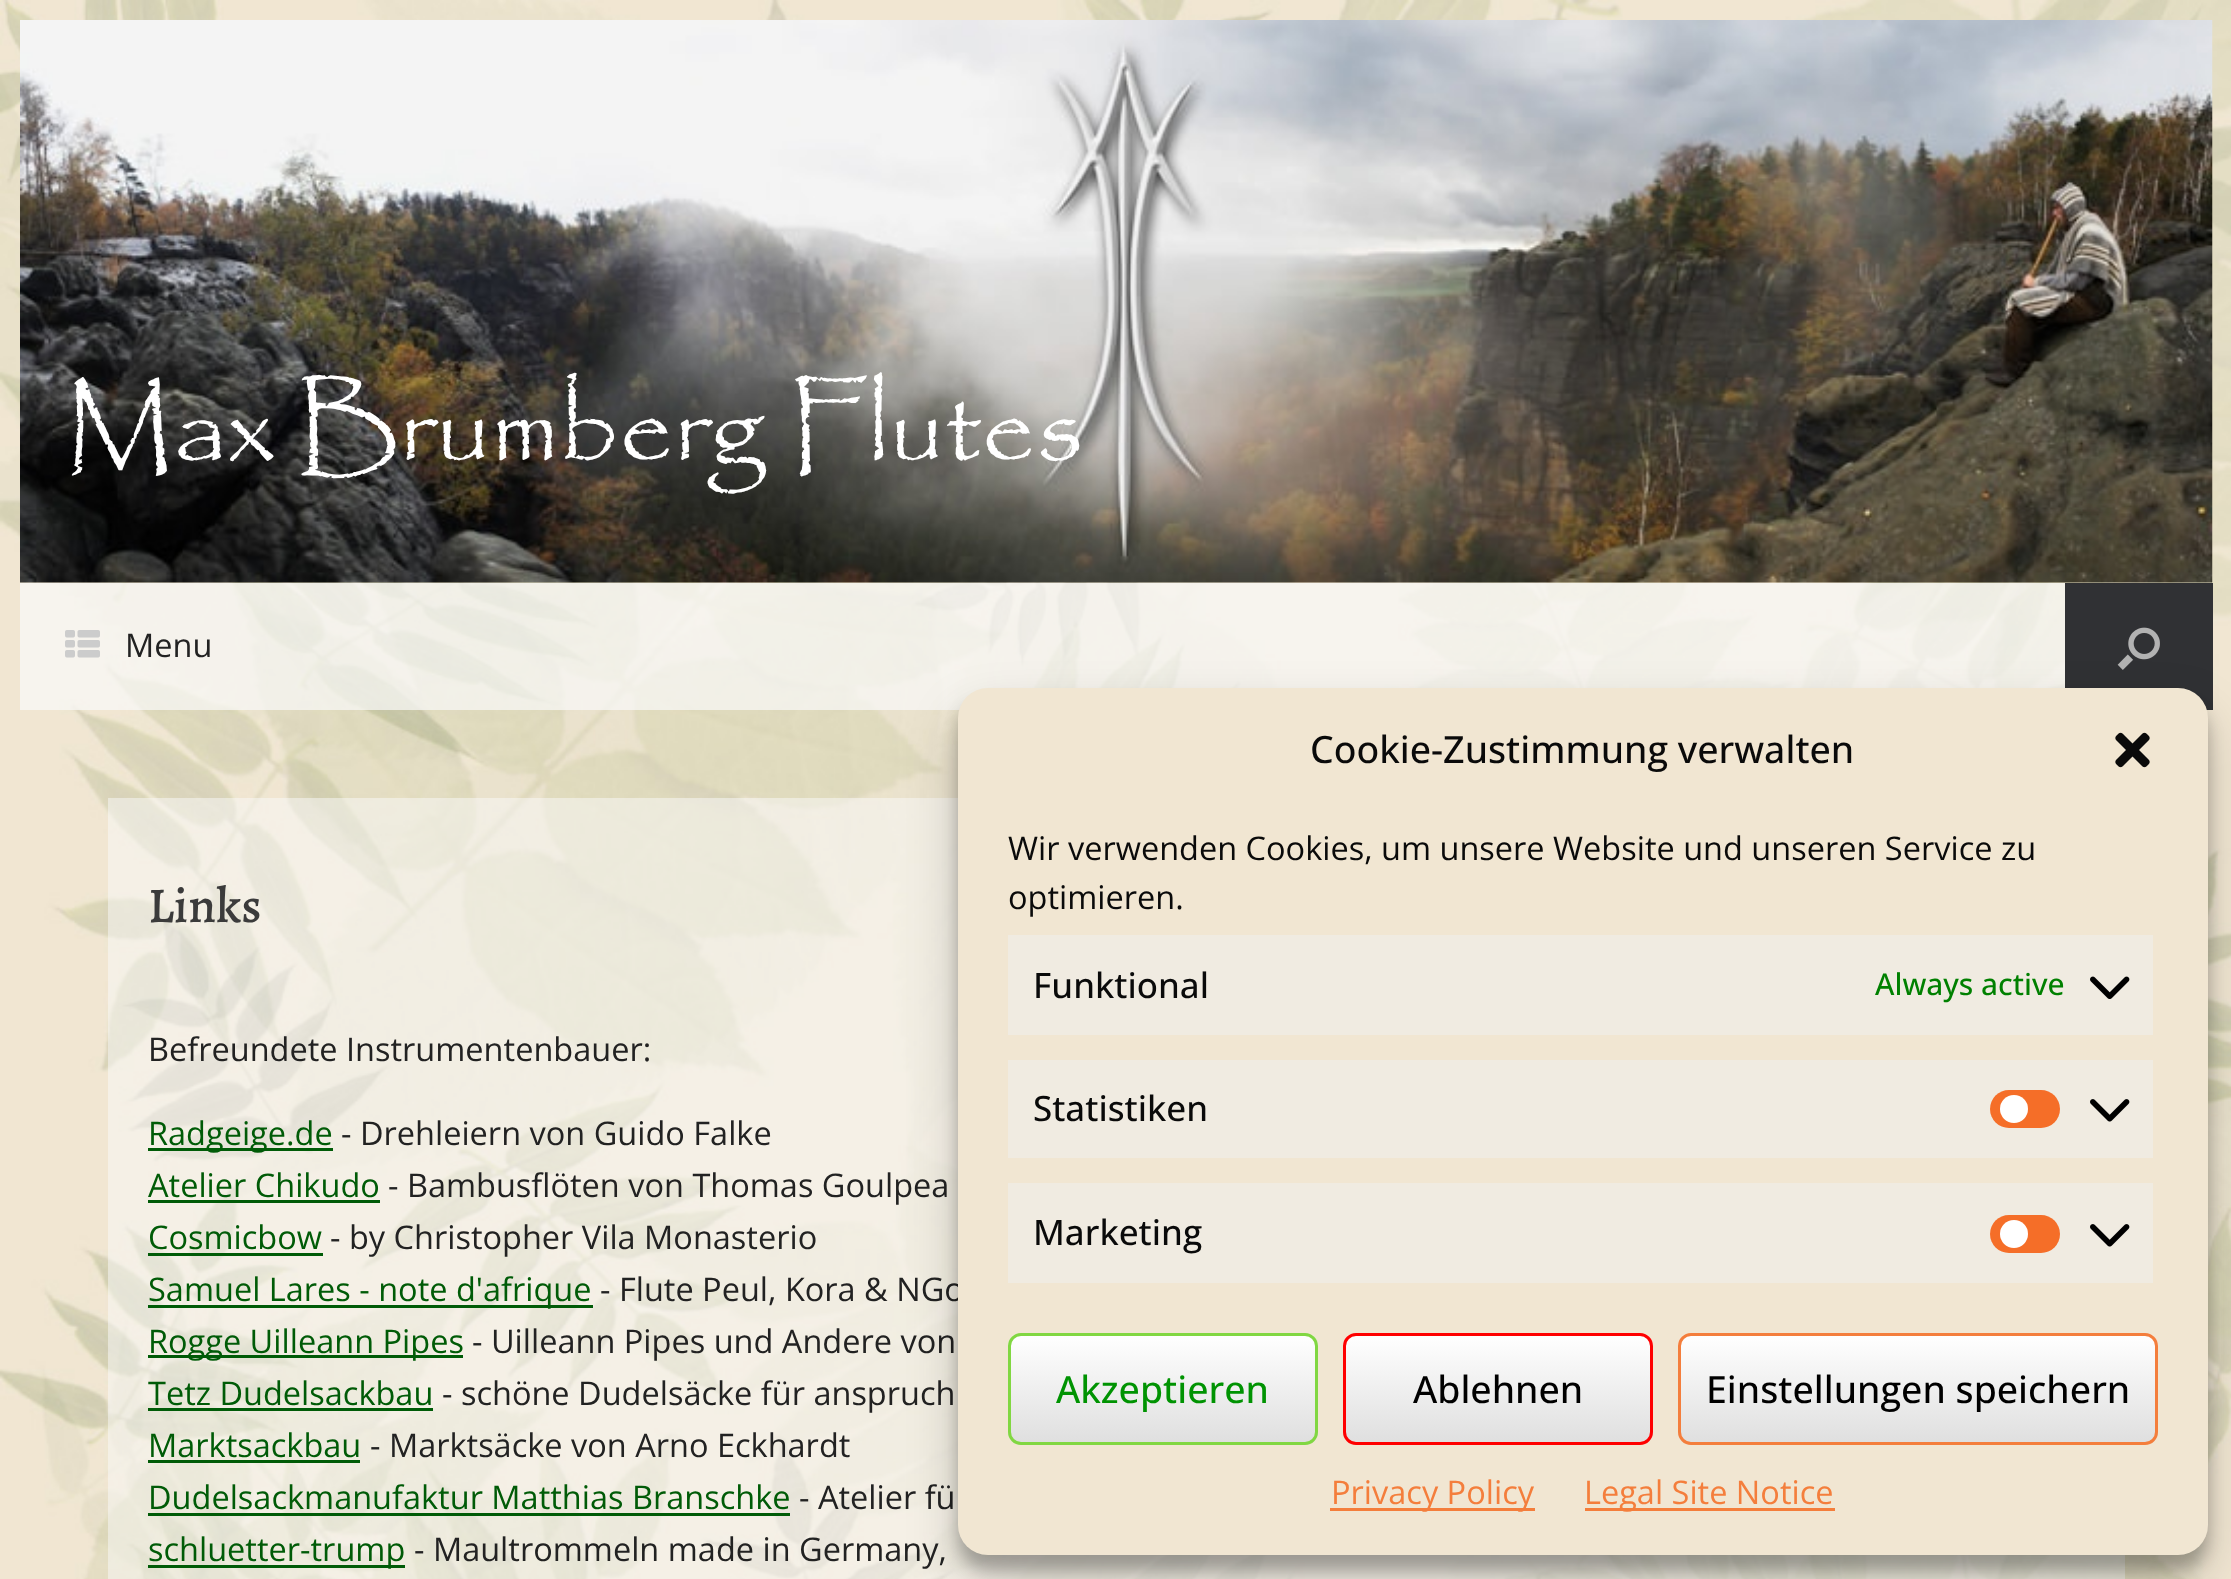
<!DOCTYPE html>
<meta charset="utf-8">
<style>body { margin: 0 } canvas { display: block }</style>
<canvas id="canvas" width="2231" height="1579"></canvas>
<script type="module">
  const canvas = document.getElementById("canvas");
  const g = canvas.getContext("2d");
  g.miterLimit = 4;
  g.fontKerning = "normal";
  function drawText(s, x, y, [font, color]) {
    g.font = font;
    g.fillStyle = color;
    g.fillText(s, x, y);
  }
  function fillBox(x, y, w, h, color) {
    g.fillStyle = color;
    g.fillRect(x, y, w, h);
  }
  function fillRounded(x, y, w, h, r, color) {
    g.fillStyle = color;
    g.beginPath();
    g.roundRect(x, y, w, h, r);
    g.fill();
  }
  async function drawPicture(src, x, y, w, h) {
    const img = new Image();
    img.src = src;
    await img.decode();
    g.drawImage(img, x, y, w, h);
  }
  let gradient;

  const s1 = ["80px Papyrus", "#FFFFFF"];
  const s2 = ["32.5px Open Sans", "#222222"];
  const s3 = ["500 50px Alegreya", "#3B3B3B"];
  const s4 = ["32.5px Open Sans", "#005B07"];
  const s5 = ["500 37.5px Open Sans", "#0A0A0A"];
  const s6 = ["32.5px Open Sans", "#0A0A0A"];
  const s7 = ["500 35px Open Sans", "#0A0A0A"];
  const s8 = ["500 30px Open Sans", "#008000"];
  const s9 = ["500 37.5px Open Sans", "#009302"];
  const s10 = ["500 37.5px Open Sans", "#000000"];
  const s11 = ["32.5px Open Sans", "#F47E3C"];

  fillBox(0, 0, 2231, 1579, "#FFFFFF");
  await drawPicture("pic1.png", 0, 0, 2231, 1579);
  await drawPicture("pic2.png", 20, 20, 2193, 563);
  drawText("Max Brumberg Flutes", 64, 460, s1);
  fillBox(20, 583, 2045, 127, "rgba(250, 250, 250, 0.7)");
  await drawPicture("pic3.png", 65, 630, 35, 28);
  drawText("Menu", 125, 657, s2);
  fillBox(2065, 583, 148, 127, "#303134");
  await drawPicture("pic4.png", 2117, 627, 43, 43);
  fillBox(108, 798, 2017, 781, "rgba(250, 250, 250, 0.5)");
  drawText("Links", 148, 922, s3);
  drawText("Befreundete Instrumentenbauer:", 148, 1061, s2);
  fillBox(148, 1148, 185, 3, "#005B07");
  drawText("Radgeige.de", 148, 1145, s4);
  drawText("- Drehleiern von Guido Falke", 341, 1145, s2);
  drawText("Atelier Chikudo", 148, 1197, s4);
  fillBox(148, 1200, 232, 3, "#005B07");
  drawText("- Bambusflöten von Thomas Goulpea", 388, 1197, s2);
  drawText("Cosmicbow", 148, 1249, s4);
  fillBox(148, 1253, 175, 3, "#005B07");
  drawText("- by Christopher Vila Monasterio", 330, 1249, s2);
  fillBox(148, 1305, 445, 3, "#005B07");
  drawText("Samuel Lares - note d'afrique", 148, 1301, s4);
  drawText("- Flute Peul, Kora & NGo", 600, 1301, s2);
  fillBox(148, 1355, 315, 3, "#005B07");
  drawText("Rogge Uilleann Pipes", 148, 1353, s4);
  drawText("- Uilleann Pipes und Andere von", 472, 1353, s2);
  drawText("Tetz Dudelsackbau", 148, 1405, s4);
  fillBox(148, 1408, 285, 3, "#005B07");
  drawText("- schöne Dudelsäcke für anspruch", 442, 1405, s2);
  drawText("Marktsackbau", 148, 1457, s4);
  fillBox(148, 1460, 212, 3, "#005B07");
  drawText("- Marktsäcke von Arno Eckhardt", 370, 1457, s2);
  drawText("Dudelsackmanufaktur Matthias Branschke", 148, 1509, s4);
  fillBox(148, 1513, 642, 3, "#005B07");
  drawText("- Atelier fü", 799, 1509, s2);
  fillBox(148, 1565, 257, 3, "#005B07");
  drawText("schluetter-trump", 148, 1561, s4);
  drawText("- Maultrommeln made in Germany,", 414, 1561, s2);
  g.fillStyle = "rgba(0, 0, 0, 0.23)";
  g.filter = "blur(7.5px)";
  g.beginPath();
  g.roundRect(958, 703, 1250, 867, 30);
  g.fill();
  g.filter = "none";
  g.fillStyle = "rgba(0, 0, 0, 0.19)";
  g.filter = "blur(25px)";
  g.beginPath();
  g.roundRect(958, 713, 1250, 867, 30);
  g.fill();
  g.filter = "none";
  fillRounded(958, 688, 1250, 867, 30, "#F1E6D2");
  drawText("Cookie-Zustimmung verwalten", 1310, 763, s5);
  await drawPicture("pic5.png", 2115, 732, 35, 36);
  drawText("Wir verwenden Cookies, um unsere Website und unseren Service zu", 1008, 860, s6);
  drawText("optimieren.", 1008, 909, s6);
  fillBox(1008, 935, 1145, 100, "#F0EBE1");
  drawText("Funktional", 1033, 998, s7);
  drawText("Always active", 1875, 995, s8);
  await drawPicture("pic6.png", 2090, 976, 40, 23);
  fillBox(1008, 1060, 1145, 98, "#F0EBE1");
  drawText("Statistiken", 1033, 1121, s7);
  fillRounded(1990, 1090, 70, 38, 19, "#F56E28");
  g.fillStyle = "#FFFFFF";
  g.beginPath();
  g.arc(2014, 1109, 14, 0, Math.PI * 2);
  g.fill();
  await drawPicture("pic7.png", 2090, 1099, 40, 23);
  fillBox(1008, 1183, 1145, 100, "#F0EBE1");
  drawText("Marketing", 1033, 1245, s7);
  fillRounded(1990, 1215, 70, 38, 19, "#F56E28");
  g.fillStyle = "#FFFFFF";
  g.beginPath();
  g.arc(2014, 1234, 14, 0, Math.PI * 2);
  g.fill();
  await drawPicture("pic7.png", 2090, 1224, 40, 23);
  g.save();
  g.beginPath();
  g.roundRect(1008, 1333, 310, 112, 13);
  g.clip();
  gradient = g.createLinearGradient(1010, 1443, 1010, 1335);
  gradient.addColorStop(0, "#DFDFDF");
  gradient.addColorStop(1, "#FFFFFF");
  g.fillStyle = gradient;
  g.fillRect(1008, 1335, 310, 108);
  g.restore();
  g.beginPath();
  g.roundRect(1009.5, 1334.5, 307, 109, 11.5);
  g.strokeStyle = "#81D742";
  g.lineWidth = 3;
  g.stroke();
  drawText("Akzeptieren", 1056, 1403, s9);
  g.save();
  g.beginPath();
  g.roundRect(1343, 1333, 310, 112, 13);
  g.clip();
  gradient = g.createLinearGradient(1345, 1443, 1345, 1335);
  gradient.addColorStop(0, "#DFDFDF");
  gradient.addColorStop(1, "#FFFFFF");
  g.fillStyle = gradient;
  g.fillRect(1343, 1335, 310, 108);
  g.restore();
  g.beginPath();
  g.roundRect(1344.5, 1334.5, 307, 109, 11.5);
  g.strokeStyle = "#FF0000";
  g.stroke();
  drawText("Ablehnen", 1413, 1403, s10);
  g.save();
  g.beginPath();
  g.roundRect(1678, 1333, 480, 112, 13);
  g.clip();
  gradient = g.createLinearGradient(1680, 1443, 1680, 1335);
  gradient.addColorStop(0, "#DFDFDF");
  gradient.addColorStop(1, "#FFFFFF");
  g.fillStyle = gradient;
  g.fillRect(1678, 1335, 480, 108);
  g.restore();
  g.beginPath();
  g.roundRect(1679.5, 1334.5, 477, 109, 11.5);
  g.strokeStyle = "#F47E3C";
  g.stroke();
  drawText("Einstellungen speichern", 1706, 1403, s10);
  fillBox(1330, 1508, 205, 3, "#F47E3C");
  drawText("Privacy Policy", 1331, 1504, s11);
  fillBox(1585, 1508, 250, 3, "#F47E3C");
  drawText("Legal Site Notice", 1584, 1504, s11);
</script>
